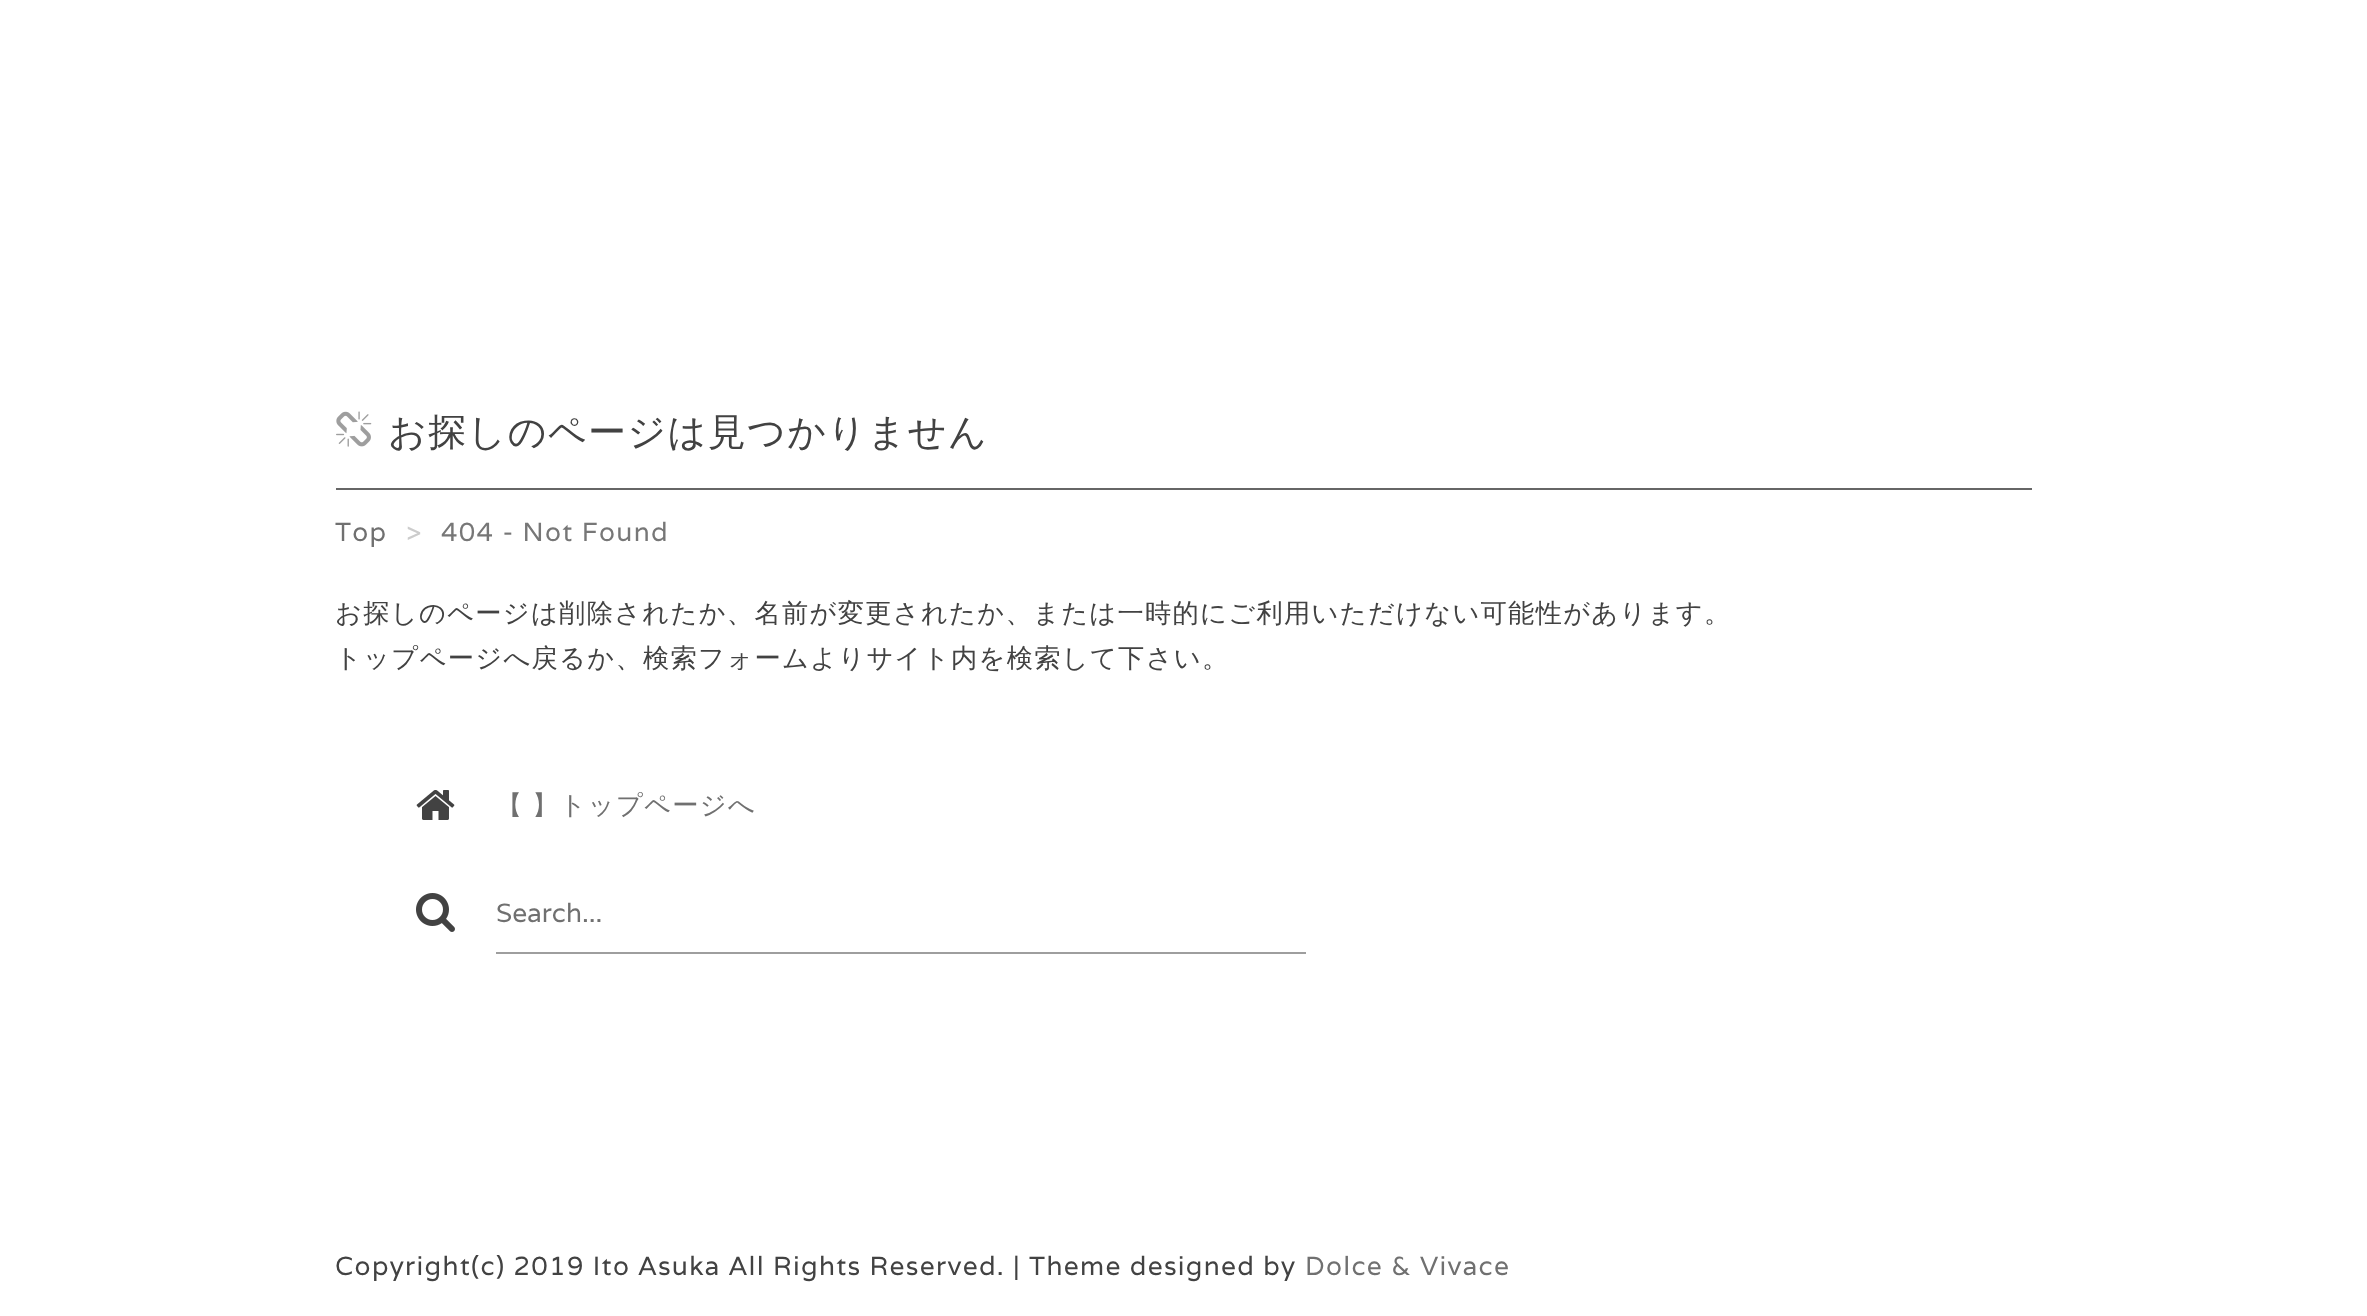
<!DOCTYPE html>
<meta charset="utf-8">
<style>body { margin: 0 } canvas { display: block }</style>
<canvas id="canvas" width="2367" height="1316"></canvas>
<script type="module">
  const canvas = document.getElementById("canvas");
  const g = canvas.getContext("2d");
  g.miterLimit = 4;
  g.fontKerning = "normal";
  function drawText(s, x, y, [font, color]) {
    g.font = font;
    g.fillStyle = color;
    g.fillText(s, x, y);
  }
  function fillBox(x, y, w, h, color) {
    g.fillStyle = color;
    g.fillRect(x, y, w, h);
  }
  async function drawPicture(src, x, y, w, h) {
    const img = new Image();
    img.src = src;
    await img.decode();
    g.drawImage(img, x, y, w, h);
  }

  const s1 = ["500 38px WenQuanYi Zen Hei", "#424242"];
  const s2 = ["26.25px Varela", "#707070"];
  const s3 = ["26.25px Varela", "#CCCCCC"];
  const s4 = ["26.25px Varela", "#777777"];
  const s5 = ["500 26.25px WenQuanYi Zen Hei", "#424242"];
  const s6 = ["500 26.25px WenQuanYi Zen Hei", "#707070"];
  const s7 = ["26.25px Varela", "#424242"];

  fillBox(0, 0, 2367, 1316, "#FFFFFF");
  fillBox(336, 488, 1696, 2, "#666666");
  await drawPicture("pic1.png", 336, 411, 36, 36);
  g.letterSpacing = "1.3px";
  drawText("お探しのページは見つかりません", 388, 445, s1);
  drawText("Top", 335, 541, s2);
  drawText(">", 406, 541, s3);
  drawText("404 - Not Found", 441, 541, s4);
  drawText("お探しのページは削除されたか、名前が変更されたか、または一時的にご利用いただけない可能性があります。", 335, 622, s5);
  drawText("トップページへ戻るか、検索フォームよりサイト内を検索して下さい。", 335, 667, s5);
  await drawPicture("pic2.png", 416, 790, 39, 30);
  drawText("【", 496, 814, s6);
  drawText("】トップページへ", 532, 814, s6);
  await drawPicture("pic3.png", 416, 893, 39, 39);
  fillBox(496, 952, 810, 2, "#9E9E9E");
  g.letterSpacing = "0px";
  drawText("Search...", 496, 922, s2);
  g.letterSpacing = "1.3px";
  drawText("Copyright(c) 2019 Ito Asuka All Rights Reserved.", 335, 1275, s7);
  drawText("| Theme designed by", 1013, 1275, s7);
  drawText("Dolce & Vivace", 1305, 1275, s2);
</script>
